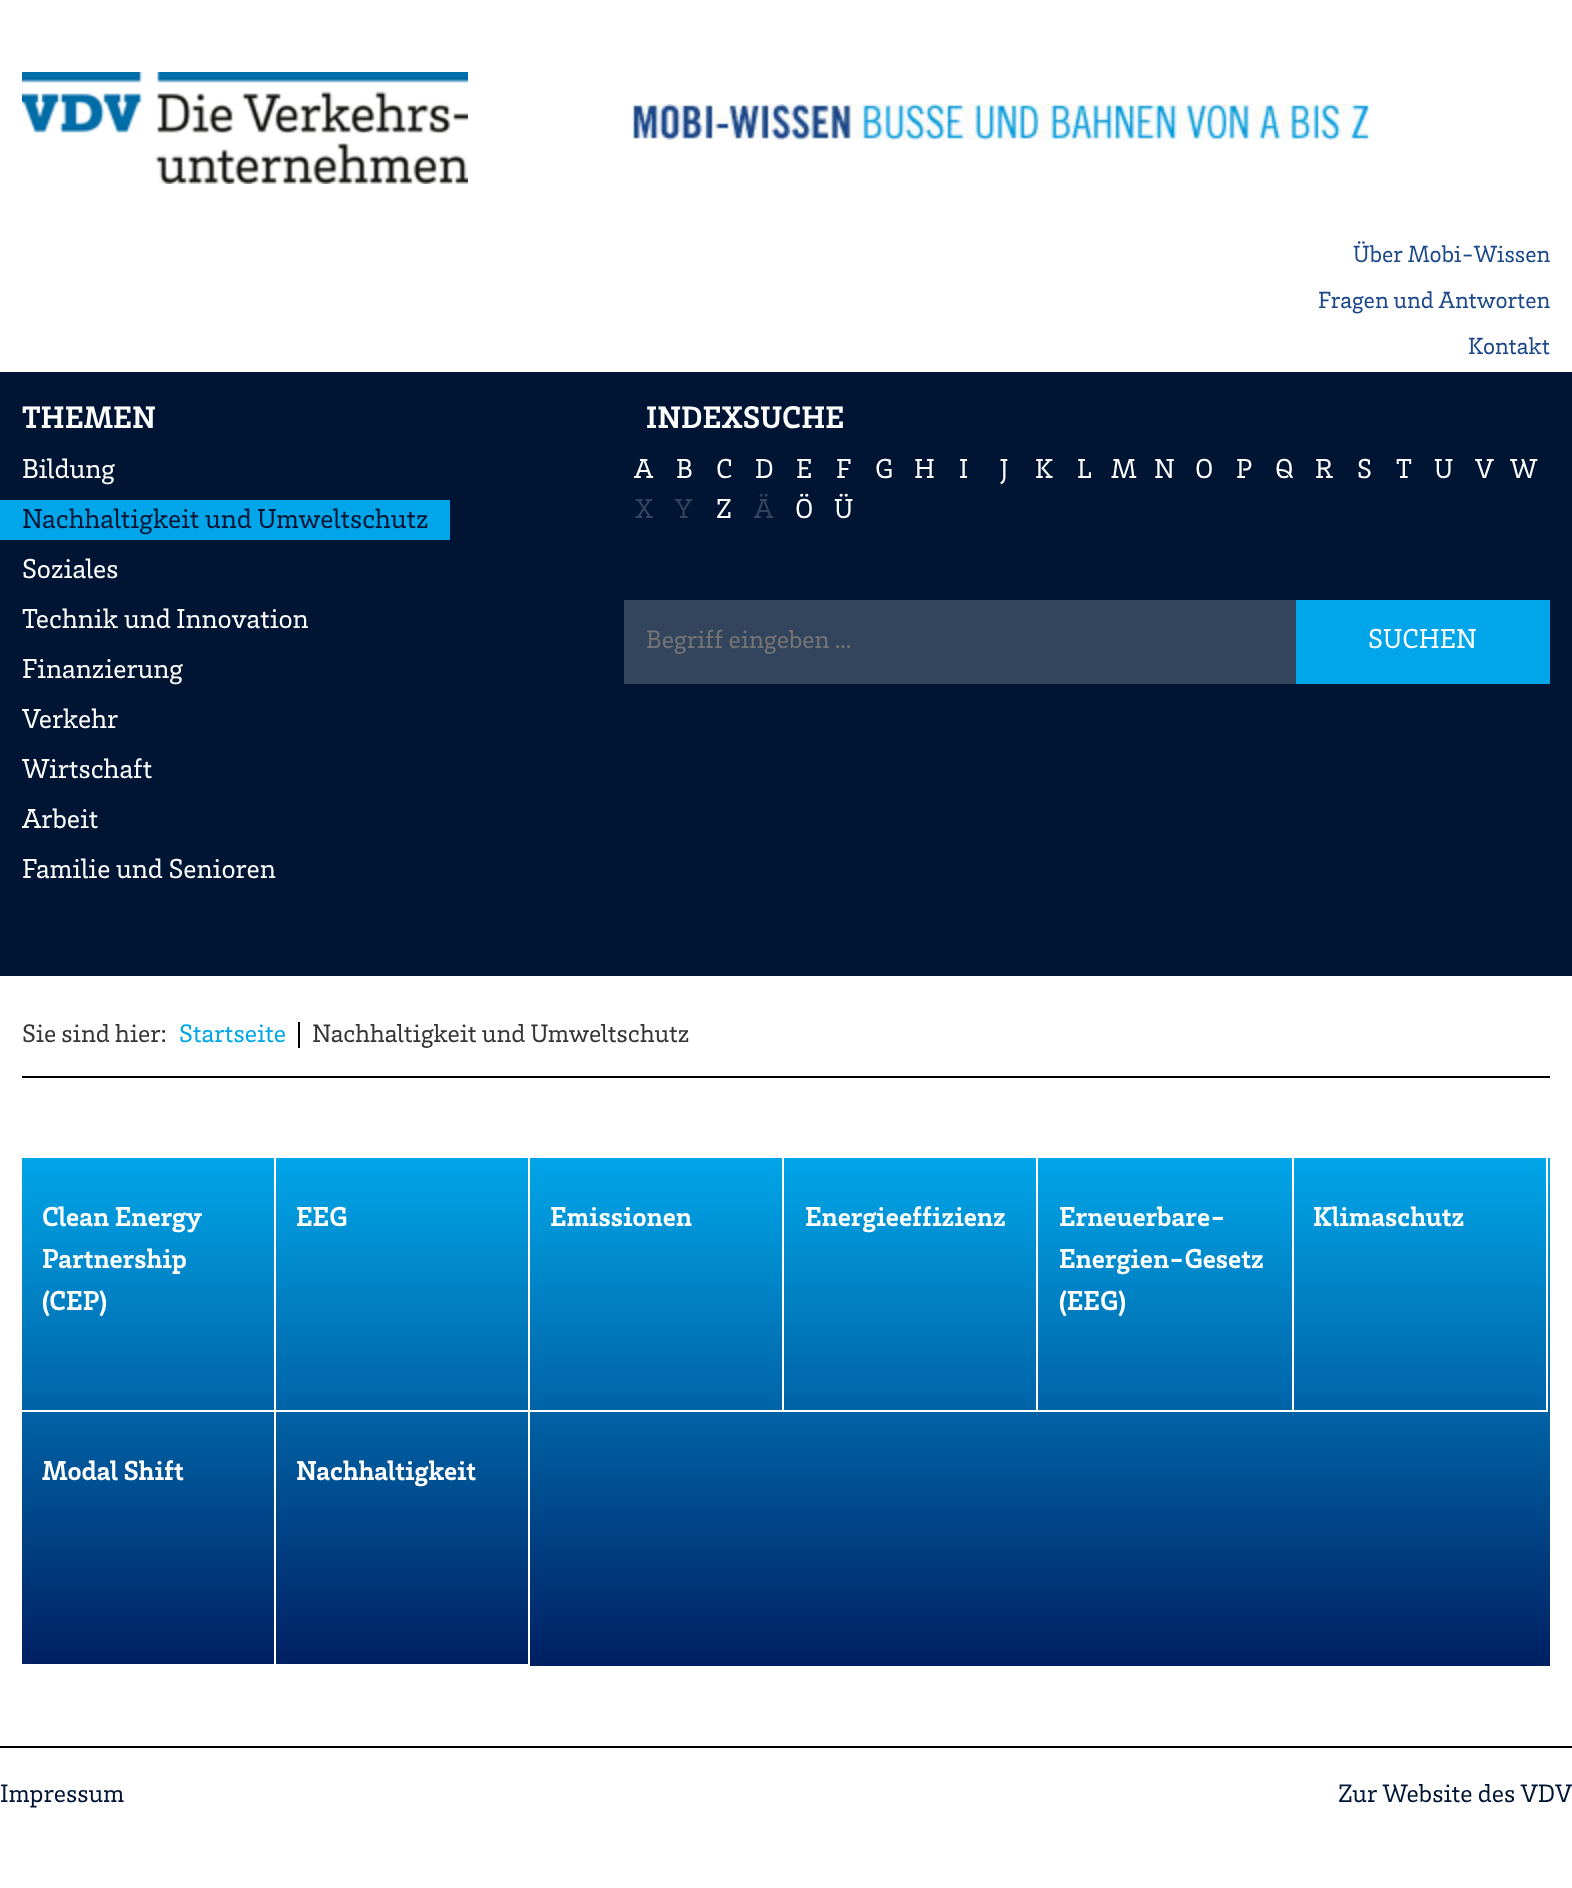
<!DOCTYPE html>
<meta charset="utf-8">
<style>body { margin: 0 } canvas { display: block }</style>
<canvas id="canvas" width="1572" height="1888"></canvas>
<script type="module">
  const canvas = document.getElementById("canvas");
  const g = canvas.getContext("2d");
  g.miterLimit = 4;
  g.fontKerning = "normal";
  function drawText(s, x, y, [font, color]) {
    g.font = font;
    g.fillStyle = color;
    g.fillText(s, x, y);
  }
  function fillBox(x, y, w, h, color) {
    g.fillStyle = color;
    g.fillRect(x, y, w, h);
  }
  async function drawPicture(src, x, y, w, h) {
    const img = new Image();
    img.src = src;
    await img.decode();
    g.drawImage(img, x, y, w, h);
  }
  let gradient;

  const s1 = ["24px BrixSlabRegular", "#1B4889"];
  const s2 = ["32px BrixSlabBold", "#FFFFFF"];
  const s3 = ["28px BrixSlabRegular", "#FFFFFF"];
  const s4 = ["28px BrixSlabRegular", "#001534"];
  const s5 = ["28px BrixSlabRegular", "#33445D"];
  const s6 = ["26px BrixSlabRegular", "#757575"];
  const s7 = ["26px BrixSlabRegular", "#353535"];
  const s8 = ["26px BrixSlabRegular", "#00A6E9"];
  const s9 = ["28px BrixSlabBold", "#FFFFFF"];
  const s10 = ["26px BrixSlabRegular", "#001534"];

  fillBox(0, 0, 1572, 1888, "#FFFFFF");
  await drawPicture("pic1.png", 22, 72, 446, 112);
  await drawPicture("pic2.png", 632, 104, 737, 36);
  drawText("Über Mobi-Wissen", 1353, 262, s1);
  drawText("Fragen und Antworten", 1318, 308, s1);
  drawText("Kontakt", 1468, 354, s1);
  fillBox(0, 372, 1572, 604, "#001534");
  drawText("THEMEN", 22, 428, s2);
  drawText("Bildung", 22, 478, s3);
  fillBox(0, 500, 450, 40, "#00A6E9");
  drawText("Nachhaltigkeit und Umweltschutz", 22, 528, s4);
  drawText("Soziales", 22, 578, s3);
  drawText("Technik und Innovation", 22, 628, s3);
  drawText("Finanzierung", 22, 678, s3);
  drawText("Verkehr", 22, 728, s3);
  drawText("Wirtschaft", 22, 778, s3);
  drawText("Arbeit", 22, 828, s3);
  drawText("Familie und Senioren", 22, 878, s3);
  drawText("INDEXSUCHE", 646, 428, s2);
  drawText("A", 634, 478, s3);
  drawText("B", 676, 478, s3);
  drawText("C", 716, 478, s3);
  drawText("D", 755, 478, s3);
  drawText("E", 796, 478, s3);
  drawText("F", 836, 478, s3);
  drawText("G", 875, 478, s3);
  drawText("H", 914, 478, s3);
  drawText("I", 959, 478, s3);
  drawText("J", 1000, 478, s3);
  drawText("K", 1035, 478, s3);
  drawText("L", 1077, 478, s3);
  drawText("M", 1111, 478, s3);
  drawText("N", 1154, 478, s3);
  drawText("O", 1195, 478, s3);
  drawText("P", 1236, 478, s3);
  drawText("Q", 1275, 478, s3);
  drawText("R", 1315, 478, s3);
  drawText("S", 1357, 478, s3);
  drawText("T", 1396, 478, s3);
  drawText("U", 1434, 478, s3);
  drawText("V", 1475, 478, s3);
  drawText("W", 1510, 478, s3);
  drawText("X", 635, 518, s5);
  drawText("Y", 675, 518, s5);
  drawText("Z", 716, 518, s3);
  drawText("Ä", 754, 518, s5);
  drawText("Ö", 795, 518, s3);
  drawText("Ü", 834, 518, s3);
  fillBox(624, 600, 672, 84, "#33445D");
  drawText("Begriff eingeben ...", 646, 648, s6);
  fillBox(1296, 600, 254, 84, "#00A6E9");
  drawText("SUCHEN", 1368, 648, s3);
  fillBox(22, 1076, 1528, 2, "#000000");
  drawText("Sie sind hier:", 22, 1042, s7);
  drawText("Startseite", 179, 1042, s8);
  fillBox(298, 1022, 2, 26, "#000000");
  drawText("Nachhaltigkeit und Umweltschutz", 312, 1042, s7);
  gradient = g.createLinearGradient(786, 1158, 786, 1666);
  gradient.addColorStop(0, "#00A6E9");
  gradient.addColorStop(1, "#001F62");
  g.fillStyle = gradient;
  g.fillRect(22, 1158, 1528, 508);
  g.strokeStyle = "#FFFFFF";
  g.lineWidth = 2;
  g.strokeRect(21, 1157, 254, 254);
  drawText("Clean Energy", 42, 1226, s9);
  drawText("Partnership", 42, 1268, s9);
  drawText("(CEP)", 42, 1310, s9);
  g.strokeRect(275, 1157, 254, 254);
  drawText("EEG", 296, 1226, s9);
  g.strokeRect(529, 1157, 254, 254);
  drawText("Emissionen", 550, 1226, s9);
  g.strokeRect(783, 1157, 254, 254);
  drawText("Energieeffizienz", 805, 1226, s9);
  g.strokeRect(1037, 1157, 256, 254);
  drawText("Erneuerbare-", 1059, 1226, s9);
  drawText("Energien-Gesetz", 1059, 1268, s9);
  drawText("(EEG)", 1059, 1310, s9);
  g.strokeRect(1293, 1157, 254, 254);
  drawText("Klimaschutz", 1313, 1226, s9);
  g.strokeRect(21, 1411, 254, 254);
  drawText("Modal Shift", 42, 1480, s9);
  g.strokeRect(275, 1411, 254, 254);
  drawText("Nachhaltigkeit", 296, 1480, s9);
  fillBox(0, 1746, 1572, 2, "#000000");
  drawText("Impressum", 0, 1802, s10);
  drawText("Zur Website des VDV", 1338, 1802, s10);
</script>
